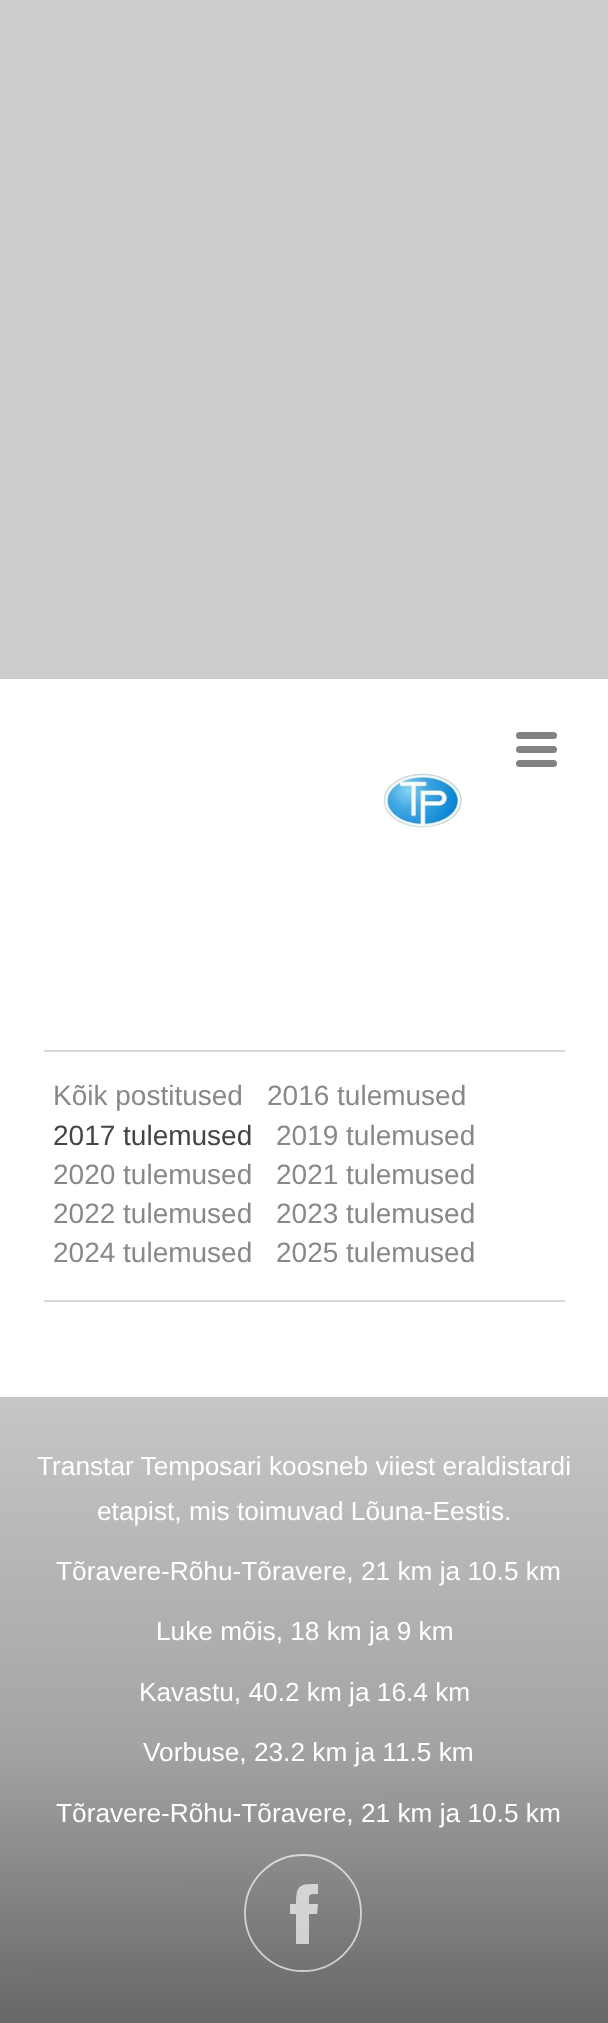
<!DOCTYPE html>
<meta charset="utf-8">
<style>body { margin: 0 } canvas { display: block }</style>
<canvas id="canvas" width="608" height="2023"></canvas>
<script type="module">
  const canvas = document.getElementById("canvas");
  const g = canvas.getContext("2d");
  g.miterLimit = 4;
  g.fontKerning = "normal";
  function drawText(s, x, y, [font, color]) {
    g.font = font;
    g.fillStyle = color;
    g.fillText(s, x, y);
  }
  function fillBox(x, y, w, h, color) {
    g.fillStyle = color;
    g.fillRect(x, y, w, h);
  }
  function fillRounded(x, y, w, h, r, color) {
    g.fillStyle = color;
    g.beginPath();
    g.roundRect(x, y, w, h, r);
    g.fill();
  }
  async function drawPicture(src, x, y, w, h) {
    const img = new Image();
    img.src = src;
    await img.decode();
    g.drawImage(img, x, y, w, h);
  }
  let gradient;

  const s1 = ["28px Liberation Sans", "#888888"];
  const s2 = ["28px Liberation Sans", "#444444"];
  const s3 = ["26.25px Liberation Sans", "#FFFFFF"];

  fillBox(0, 0, 608, 2023, "#CDCDCD");
  fillBox(0, 679, 608, 718, "#FFFFFF");
  fillBox(44, 1050, 521, 2, "#D8D8D8");
  fillRounded(516, 732, 41, 7, 3.5, "#828282");
  fillRounded(516, 746, 41, 7, 3.5, "#828282");
  fillRounded(516, 760, 41, 7, 3.5, "#828282");
  await drawPicture("pic1.png", 383, 773, 79, 55);
  fillBox(44, 1300, 521, 2, "#D8D8D8");
  drawText("Kõik postitused", 53, 1105, s1);
  drawText("2016 tulemused", 267, 1105, s1);
  drawText("2017 tulemused", 53, 1145, s2);
  drawText("2019 tulemused", 276, 1145, s1);
  drawText("2020 tulemused", 53, 1184, s1);
  drawText("2021 tulemused", 276, 1184, s1);
  drawText("2022 tulemused", 53, 1223, s1);
  drawText("2023 tulemused", 276, 1223, s1);
  drawText("2024 tulemused", 53, 1262, s1);
  drawText("2025 tulemused", 276, 1262, s1);
  gradient = g.createLinearGradient(304, 1323, 305, 2023);
  gradient.addColorStop(0, "#CDCDCD");
  gradient.addColorStop(0.6, "#A4A4A4");
  gradient.addColorStop(1, "#676767");
  g.fillStyle = gradient;
  g.fillRect(0, 1397, 608, 626);
  drawText("Transtar Temposari koosneb viiest eraldistardi", 37, 1475, s3);
  drawText("etapist, mis toimuvad Lõuna-Eestis.", 97, 1520, s3);
  drawText("Tõravere-Rõhu-Tõravere, 21 km ja 10.5 km", 56, 1580, s3);
  drawText("Luke mõis, 18 km ja 9 km", 156, 1640, s3);
  drawText("Kavastu, 40.2 km ja 16.4 km", 139, 1701, s3);
  drawText("Vorbuse, 23.2 km ja 11.5 km", 143, 1761, s3);
  drawText("Tõravere-Rõhu-Tõravere, 21 km ja 10.5 km", 56, 1822, s3);
  g.beginPath();
  g.arc(303, 1913, 58, 0, Math.PI * 2);
  g.strokeStyle = "rgba(255, 255, 255, 0.66)";
  g.lineWidth = 1.8;
  g.stroke();
  g.fillStyle = "rgba(255, 255, 255, 0.66)";
  g.beginPath();
  g.moveTo(309, 1944);
  g.lineTo(296, 1944);
  g.lineTo(296, 1914);
  g.lineTo(290, 1914);
  g.lineTo(290, 1904);
  g.lineTo(296, 1904);
  g.bezierCurveTo(296, 1884, 300, 1884, 318, 1884);
  g.lineTo(318, 1894);
  g.bezierCurveTo(308, 1894, 309, 1894, 309, 1904);
  g.lineTo(318, 1904);
  g.lineTo(317, 1914);
  g.lineTo(309, 1914);
  g.closePath();
  g.fill("evenodd");
</script>
